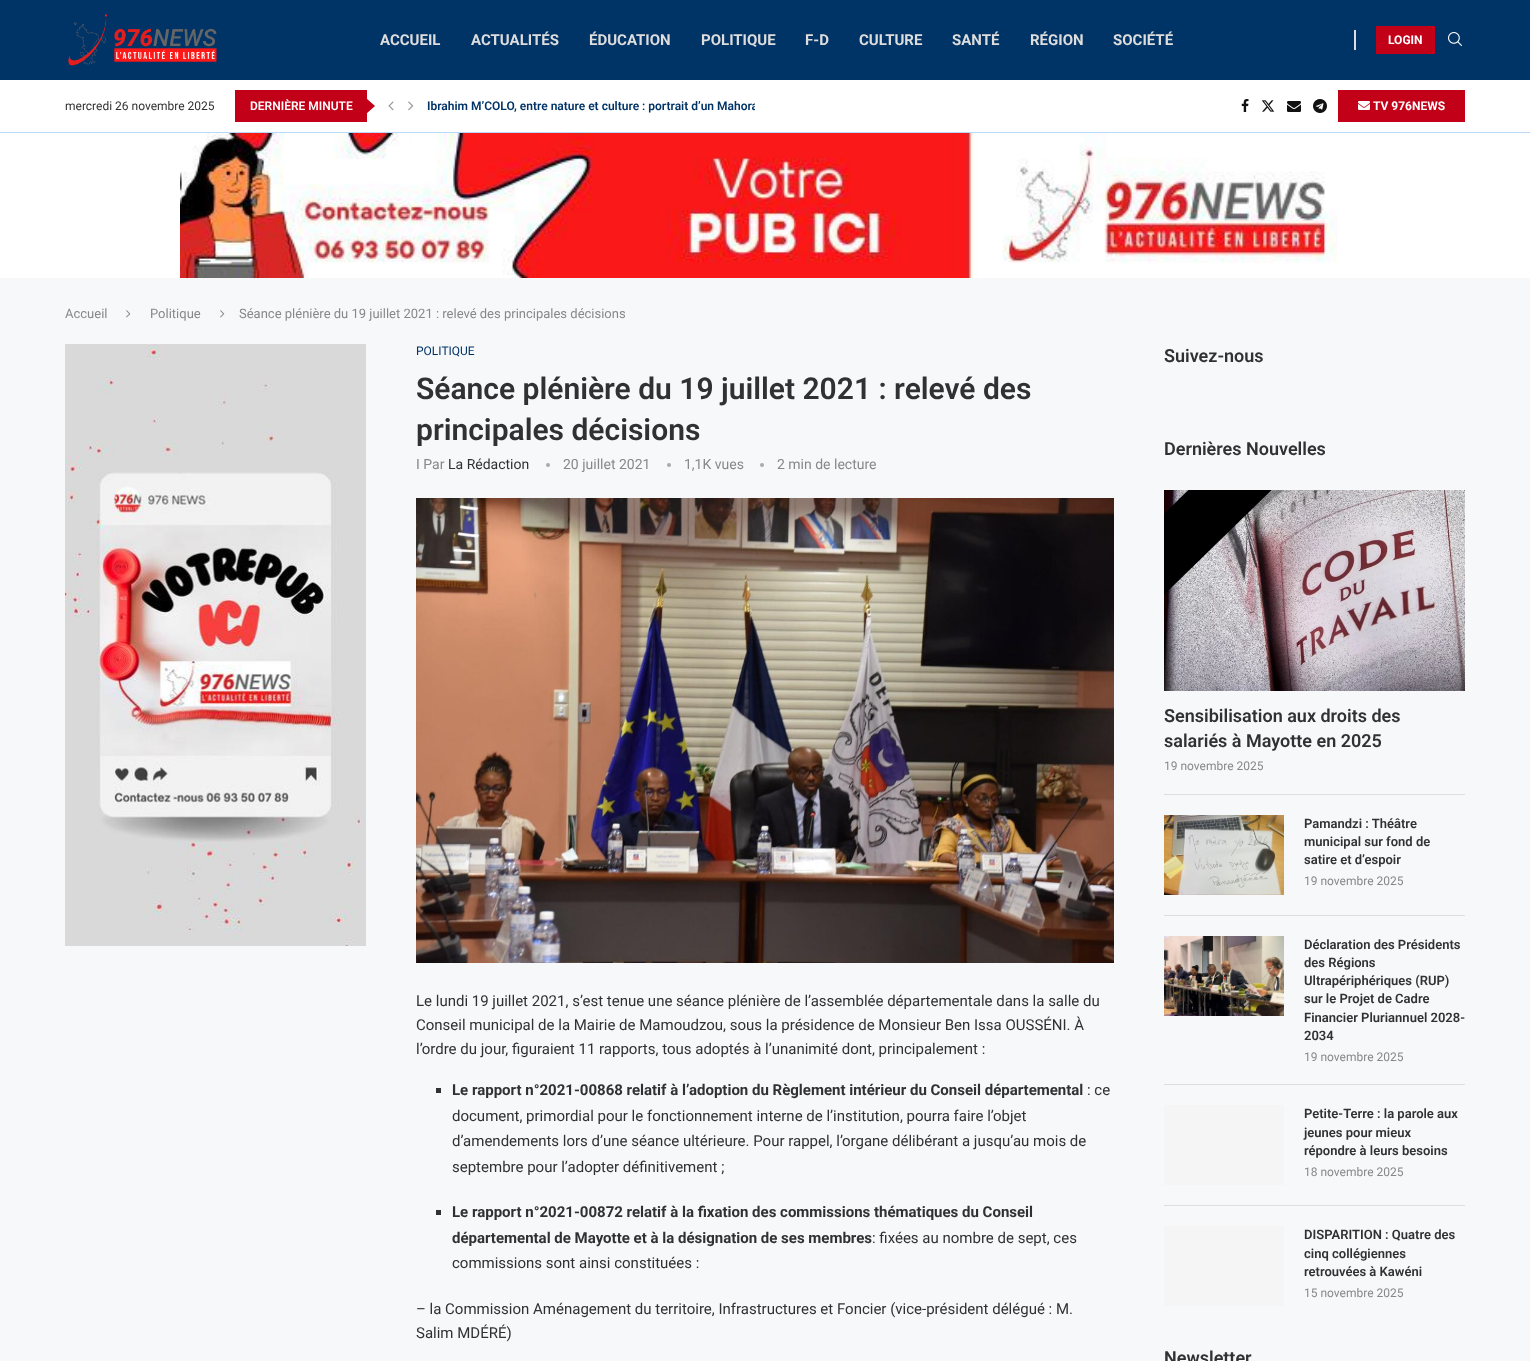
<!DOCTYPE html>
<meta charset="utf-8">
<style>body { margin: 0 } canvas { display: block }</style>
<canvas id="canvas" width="1530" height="1361"></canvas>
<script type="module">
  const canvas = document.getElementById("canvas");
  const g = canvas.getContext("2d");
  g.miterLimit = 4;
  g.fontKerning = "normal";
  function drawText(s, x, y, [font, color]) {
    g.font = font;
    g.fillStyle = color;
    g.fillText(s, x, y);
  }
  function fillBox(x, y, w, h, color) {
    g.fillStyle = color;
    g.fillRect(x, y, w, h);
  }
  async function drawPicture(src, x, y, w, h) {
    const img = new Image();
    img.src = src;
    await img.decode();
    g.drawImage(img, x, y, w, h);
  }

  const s1 = ["bold 15px Roboto", "#DDDDDD"];
  const s2 = ["bold 12px Roboto", "#FFFFFF"];
  const s3 = ["12px Roboto", "#313131"];
  const s4 = ["600 12px Roboto", "#FFFFFF"];
  const s5 = ["600 12px Roboto", "#003366"];
  const s6 = ["13px Roboto", "#888888"];
  const s7 = ["12px Roboto", "#003366"];
  const s8 = ["600 30px Roboto", "#313131"];
  const s9 = ["14px Roboto", "#888888"];
  const s10 = ["14px Roboto", "#313131"];
  const s11 = ["15px Roboto", "#313131"];
  const s12 = ["bold 15px Roboto", "#313131"];
  const s13 = ["600 18px Roboto", "#313131"];
  const s14 = ["12px Roboto", "#888888"];
  const s15 = ["600 13px Roboto", "#313131"];

  fillBox(0, 0, 1530, 1361, "#F6F8FA");
  fillBox(0, 0, 1530, 80, "#003366");
  await drawPicture("pic1.png", 68, 14, 149, 52);
  drawText("ACCUEIL", 380, 45, s1);
  drawText("ACTUALITÉS", 471, 45, s1);
  drawText("ÉDUCATION", 589, 45, s1);
  drawText("POLITIQUE", 701, 45, s1);
  drawText("F-D", 805, 45, s1);
  drawText("CULTURE", 859, 45, s1);
  drawText("SANTÉ", 952, 45, s1);
  drawText("RÉGION", 1030, 45, s1);
  drawText("SOCIÉTÉ", 1113, 45, s1);
  fillBox(1354, 30, 2, 20, "#DEDEDE");
  fillBox(1376, 26, 59, 28, "#C20017");
  drawText("LOGIN", 1388, 44, s2);
  await drawPicture("pic2.png", 1448, 32, 14, 14);
  fillBox(0, 80, 1530, 52, "#FFFFFF");
  fillBox(0, 132, 1530, 1, "#BAD9F8");
  drawText("mercredi 26 novembre 2025", 65, 110, s3);
  fillBox(235, 90, 132, 32, "#C20017");
  drawText("DERNIÈRE MINUTE", 250, 110, s4);
  g.fillStyle = "#C20017";
  g.beginPath();
  g.moveTo(366, 114);
  g.lineTo(366, 98);
  g.lineTo(375, 106);
  g.closePath();
  g.fill();
  await drawPicture("pic3.png", 388, 101, 6, 10);
  await drawPicture("pic4.png", 408, 101, 6, 10);
  g.save();
  g.beginPath();
  g.rect(427, 90, 328, 32);
  g.clip();
  drawText("Ibrahim M’COLO, entre nature et culture : portrait d’un Mahora", 427, 110, s5);
  g.restore();
  await drawPicture("pic5.png", 1241, 99, 8, 13);
  await drawPicture("pic6.png", 1261, 100, 14, 12);
  await drawPicture("pic7.png", 1287, 101, 14, 11);
  await drawPicture("pic8.png", 1313, 99, 14, 14);
  fillBox(1338, 90, 127, 32, "#C20017");
  await drawPicture("pic9.png", 1358, 101, 12, 9);
  drawText("TV 976NEWS", 1373, 110, s2);
  fillBox(0, 133, 1530, 145, "#FFFFFF");
  await drawPicture("pic10.png", 180, 133, 1158, 145);
  drawText("Accueil", 65, 318, s6);
  await drawPicture("pic11.png", 126, 310, 5, 8);
  drawText("Politique", 150, 318, s6);
  await drawPicture("pic11.png", 220, 310, 5, 8);
  drawText("Séance plénière du 19 juillet 2021 : relevé des principales décisions", 239, 318, s6);
  await drawPicture("pic12.png", 65, 344, 301, 602);
  drawText("POLITIQUE", 416, 355, s7);
  drawText("Séance plénière du 19 juillet 2021 : relevé des", 416, 399, s8);
  drawText("principales décisions", 416, 440, s8);
  drawText("I Par", 416, 469, s9);
  drawText("La Rédaction", 448, 469, s10);
  g.fillStyle = "#A9AAAA";
  g.beginPath();
  g.arc(548, 465, 2, 0, Math.PI * 2);
  g.fill();
  drawText("20 juillet 2021", 563, 469, s9);
  g.fillStyle = "#A9AAAA";
  g.beginPath();
  g.arc(669, 465, 2, 0, Math.PI * 2);
  g.fill();
  drawText("1,1K vues", 684, 469, s9);
  g.fillStyle = "#A9AAAA";
  g.beginPath();
  g.arc(762, 465, 2, 0, Math.PI * 2);
  g.fill();
  drawText("2 min de lecture", 777, 469, s9);
  await drawPicture("pic13.png", 416, 498, 698, 465);
  drawText("Le lundi 19 juillet 2021, s’est tenue une séance plénière de l’assemblée départementale dans la salle du", 416, 1006, s11);
  drawText("Conseil municipal de la Mairie de Mamoudzou, sous la présidence de Monsieur Ben Issa OUSSÉNI. À", 416, 1030, s11);
  drawText("l’ordre du jour, figuraient 11 rapports, tous adoptés à l’unanimité dont, principalement :", 416, 1054, s11);
  fillBox(436, 1088, 5, 5, "#313131");
  drawText("Le rapport n°2021-00868 relatif à l’adoption du Règlement intérieur du Conseil départemental", 452, 1095, s12);
  drawText(": ce", 1087, 1095, s11);
  drawText("document, primordial pour le fonctionnement interne de l’institution, pourra faire l’objet", 452, 1121, s11);
  drawText("d’amendements lors d’une séance ultérieure. Pour rappel, l’organe délibérant a jusqu’au mois de", 452, 1146, s11);
  drawText("septembre pour l’adopter définitivement ;", 452, 1172, s11);
  fillBox(436, 1210, 5, 5, "#313131");
  drawText("Le rapport n°2021-00872 relatif à la fixation des commissions thématiques du Conseil", 452, 1217, s12);
  drawText("départemental de Mayotte et à la désignation de ses membres", 452, 1243, s12);
  drawText(": fixées au nombre de sept, ces", 872, 1243, s11);
  drawText("commissions sont ainsi constituées :", 452, 1268, s11);
  drawText("– la Commission Aménagement du territoire, Infrastructures et Foncier (vice-président délégué : M.", 416, 1314, s11);
  drawText("Salim MDÉRÉ)", 416, 1338, s11);
  drawText("Suivez-nous", 1164, 362, s13);
  drawText("Dernières Nouvelles", 1164, 455, s13);
  fillBox(1164, 794, 301, 1, "#DEDEDE");
  await drawPicture("pic14.png", 1164, 490, 301, 201);
  drawText("Sensibilisation aux droits des", 1164, 722, s13);
  drawText("salariés à Mayotte en 2025", 1164, 747, s13);
  drawText("19 novembre 2025", 1164, 770, s14);
  fillBox(1164, 915, 301, 1, "#DEDEDE");
  await drawPicture("pic15.png", 1164, 815, 120, 80);
  drawText("Pamandzi : Théâtre", 1304, 828, s15);
  drawText("municipal sur fond de", 1304, 846, s15);
  drawText("satire et d’espoir", 1304, 864, s15);
  drawText("19 novembre 2025", 1304, 885, s14);
  fillBox(1164, 1084, 301, 1, "#DEDEDE");
  await drawPicture("pic16.png", 1164, 936, 120, 80);
  drawText("Déclaration des Présidents", 1304, 949, s15);
  drawText("des Régions", 1304, 967, s15);
  drawText("Ultrapériphériques (RUP)", 1304, 985, s15);
  drawText("sur le Projet de Cadre", 1304, 1003, s15);
  drawText("Financier Pluriannuel 2028-", 1304, 1022, s15);
  drawText("2034", 1304, 1040, s15);
  drawText("19 novembre 2025", 1304, 1061, s14);
  fillBox(1164, 1205, 301, 1, "#DEDEDE");
  fillBox(1164, 1105, 120, 80, "#F5F5F5");
  drawText("Petite-Terre : la parole aux", 1304, 1118, s15);
  drawText("jeunes pour mieux", 1304, 1137, s15);
  drawText("répondre à leurs besoins", 1304, 1155, s15);
  drawText("18 novembre 2025", 1304, 1176, s14);
  fillBox(1164, 1226, 120, 80, "#F5F5F5");
  drawText("DISPARITION : Quatre des", 1304, 1239, s15);
  drawText("cinq collégiennes", 1304, 1258, s15);
  drawText("retrouvées à Kawéni", 1304, 1276, s15);
  drawText("15 novembre 2025", 1304, 1297, s14);
  drawText("Newsletter", 1164, 1364, s13);
</script>
